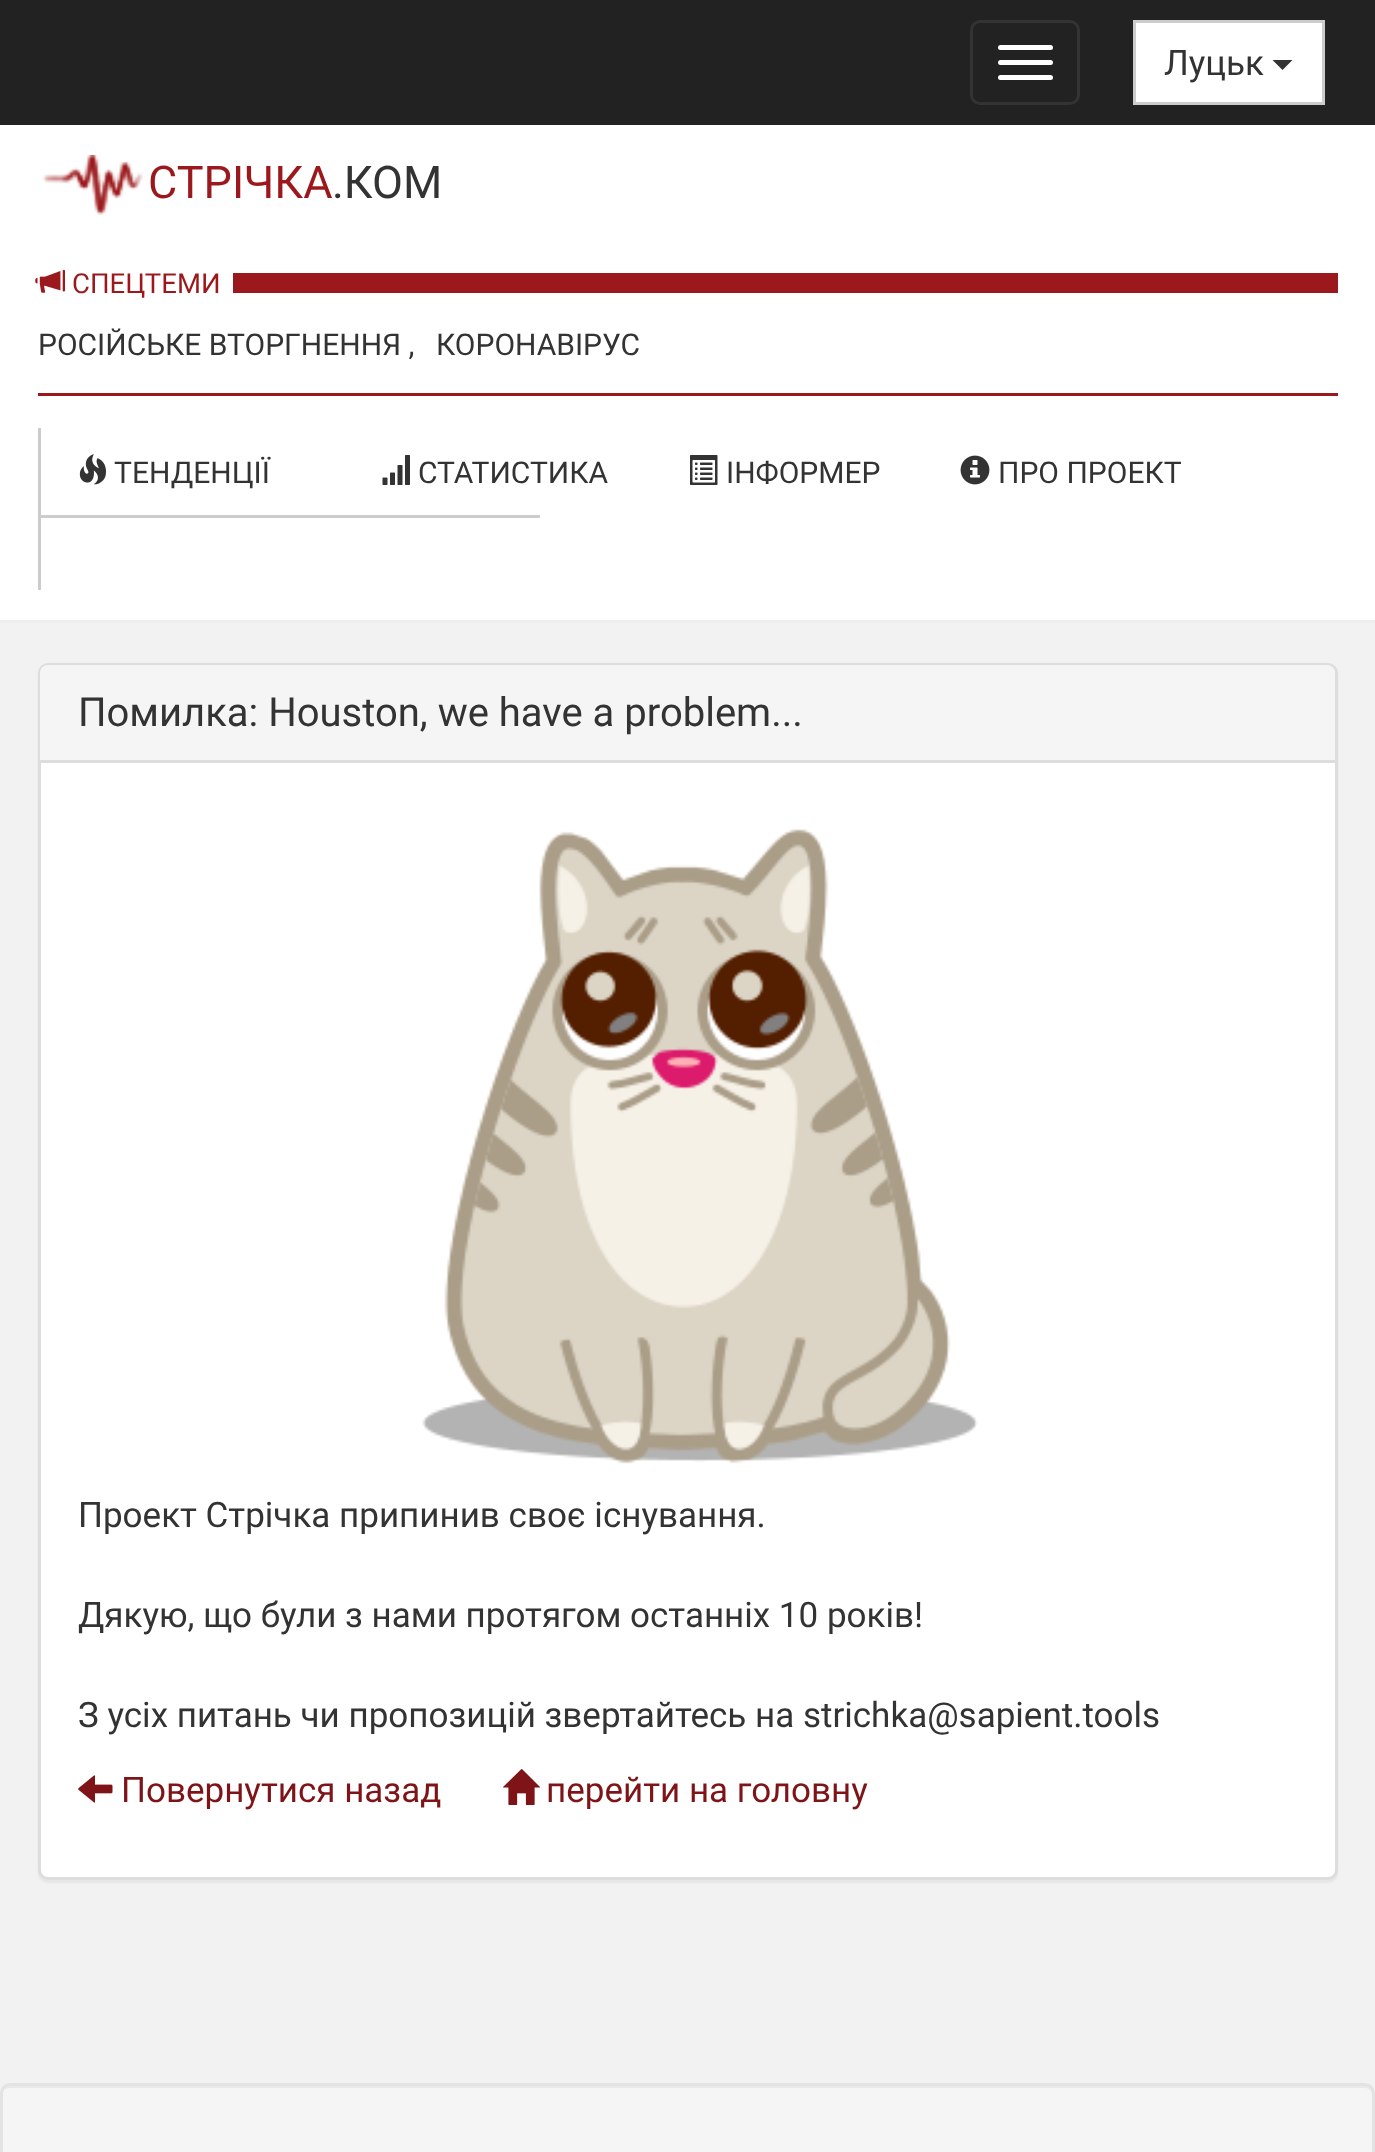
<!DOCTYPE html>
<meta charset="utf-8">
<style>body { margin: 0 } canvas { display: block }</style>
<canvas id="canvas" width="1375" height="2152"></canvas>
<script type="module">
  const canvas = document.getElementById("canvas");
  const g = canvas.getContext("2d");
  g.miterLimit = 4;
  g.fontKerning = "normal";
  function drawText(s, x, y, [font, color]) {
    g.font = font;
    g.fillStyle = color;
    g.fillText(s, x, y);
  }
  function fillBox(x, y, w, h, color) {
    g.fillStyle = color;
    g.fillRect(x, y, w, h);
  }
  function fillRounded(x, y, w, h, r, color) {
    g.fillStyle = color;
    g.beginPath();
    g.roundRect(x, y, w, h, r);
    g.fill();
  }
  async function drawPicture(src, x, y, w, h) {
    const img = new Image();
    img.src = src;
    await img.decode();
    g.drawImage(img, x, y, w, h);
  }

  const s1 = ["35px Roboto", "#333333"];
  const s2 = ["45px Roboto", "#9B191C"];
  const s3 = ["45px Roboto", "#333333"];
  const s4 = ["27.5px Roboto", "#9B191C"];
  const s5 = ["30px Roboto", "#333333"];
  const s6 = ["40px Roboto", "#333333"];
  const s7 = ["35px Roboto", "#7E1417"];

  fillBox(0, 0, 1375, 2152, "#F2F2F2");
  fillBox(0, 0, 1375, 125, "#222222");
  g.beginPath();
  g.roundRect(971.5, 21.5, 107, 82, 8.5);
  g.strokeStyle = "#333333";
  g.lineWidth = 3;
  g.stroke();
  fillRounded(998, 45, 55, 5, 2.5, "#FFFFFF");
  fillRounded(998, 60, 55, 5, 2.5, "#FFFFFF");
  fillRounded(998, 75, 55, 5, 2.5, "#FFFFFF");
  g.beginPath();
  g.rect(1134.5, 21.5, 189, 82);
  g.fill();
  g.strokeStyle = "#CCCCCC";
  g.stroke();
  drawText("Луцьк", 1164, 75, s1);
  g.beginPath();
  g.moveTo(1272.5, 60);
  g.lineTo(1292.5, 60);
  g.lineTo(1282.5, 70);
  g.closePath();
  g.fill();
  fillBox(0, 125, 1375, 495, "#FFFFFF");
  fillBox(0, 620, 1375, 3, "#EEEEEE");
  await drawPicture("pic1.png", 42, 155, 101, 60);
  drawText("СТРІЧКА", 148, 198, s2);
  drawText(".КОМ", 332, 198, s3);
  fillBox(233, 273, 1105, 20, "#9B191C");
  fillBox(38, 393, 1300, 3, "#9B191C");
  await drawPicture("pic2.png", 35, 269, 30, 24);
  drawText("СПЕЦТЕМИ", 72, 293, s4);
  drawText("РОСІЙСЬКЕ ВТОРГНЕННЯ ,", 38, 355, s5);
  drawText("КОРОНАВІРУС", 436, 355, s5);
  fillBox(38, 428, 3, 162, "#CCCCCC");
  await drawPicture("pic3.png", 79, 454, 27, 31);
  drawText("ТЕНДЕНЦІЇ", 114, 483, s5);
  await drawPicture("pic4.png", 382, 455, 28, 30);
  drawText("СТАТИСТИКА", 418, 483, s5);
  await drawPicture("pic5.png", 690, 455, 28, 30);
  drawText("ІНФОРМЕР", 726, 483, s5);
  await drawPicture("pic6.png", 960, 455, 30, 30);
  drawText("ПРО ПРОЕКТ", 998, 483, s5);
  fillBox(40, 515, 500, 3, "#CCCCCC");
  g.fillStyle = "rgba(0, 0, 0, 0.05)";
  g.filter = "blur(1px)";
  g.beginPath();
  g.roundRect(38, 665, 1300, 1218, 10);
  g.fill();
  g.filter = "none";
  g.fillStyle = "#FFFFFF";
  g.beginPath();
  g.roundRect(39.5, 664.5, 1297, 1214, 8.5);
  g.fill();
  g.strokeStyle = "#DDDDDD";
  g.stroke();
  g.fillStyle = "#F5F5F5";
  g.beginPath();
  g.roundRect(40, 665, 1295, 98, [8, 8, 0, 0]);
  g.fill();
  fillBox(40, 760, 1295, 3, "#DDDDDD");
  drawText("Помилка: Houston, we have a problem...", 78, 726, s6);
  await drawPicture("pic7.png", 422, 829, 556, 635);
  drawText("Проект Стрічка припинив своє існування.", 78, 1527, s1);
  drawText("Дякую, що були з нами протягом останніх 10 років!", 78, 1627, s1);
  drawText("З усіх питань чи пропозицій звертайтесь на strichka@sapient.tools", 78, 1727, s1);
  await drawPicture("pic8.png", 78, 1775, 35, 28);
  drawText("Повернутися назад", 121, 1802, s7);
  await drawPicture("pic9.png", 503, 1769, 37, 36);
  drawText("перейти на головну", 546, 1802, s7);
  fillRounded(0, 2083, 1375, 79, 10, "#F5F5F5");
  g.fillStyle = "#E9E9E9";
  g.beginPath();
  g.moveTo(10, 2088);
  g.lineTo(1365, 2088);
  g.bezierCurveTo(1369, 2088, 1372, 2091, 1372, 2095);
  g.lineTo(1372, 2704);
  g.bezierCurveTo(1373, 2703, 1373, 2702, 1373, 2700);
  g.lineTo(1373, 2093);
  g.bezierCurveTo(1373, 2089, 1369, 2085, 1365, 2085);
  g.lineTo(11, 2085);
  g.bezierCurveTo(7, 2085, 4, 2088, 3, 2091);
  g.bezierCurveTo(5, 2089, 7, 2088, 10, 2088);
  g.closePath();
  g.fill();
  g.beginPath();
  g.roundRect(1.5, 2084.5, 1372, 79, 8.5);
  g.strokeStyle = "#E3E3E3";
  g.stroke();
</script>
